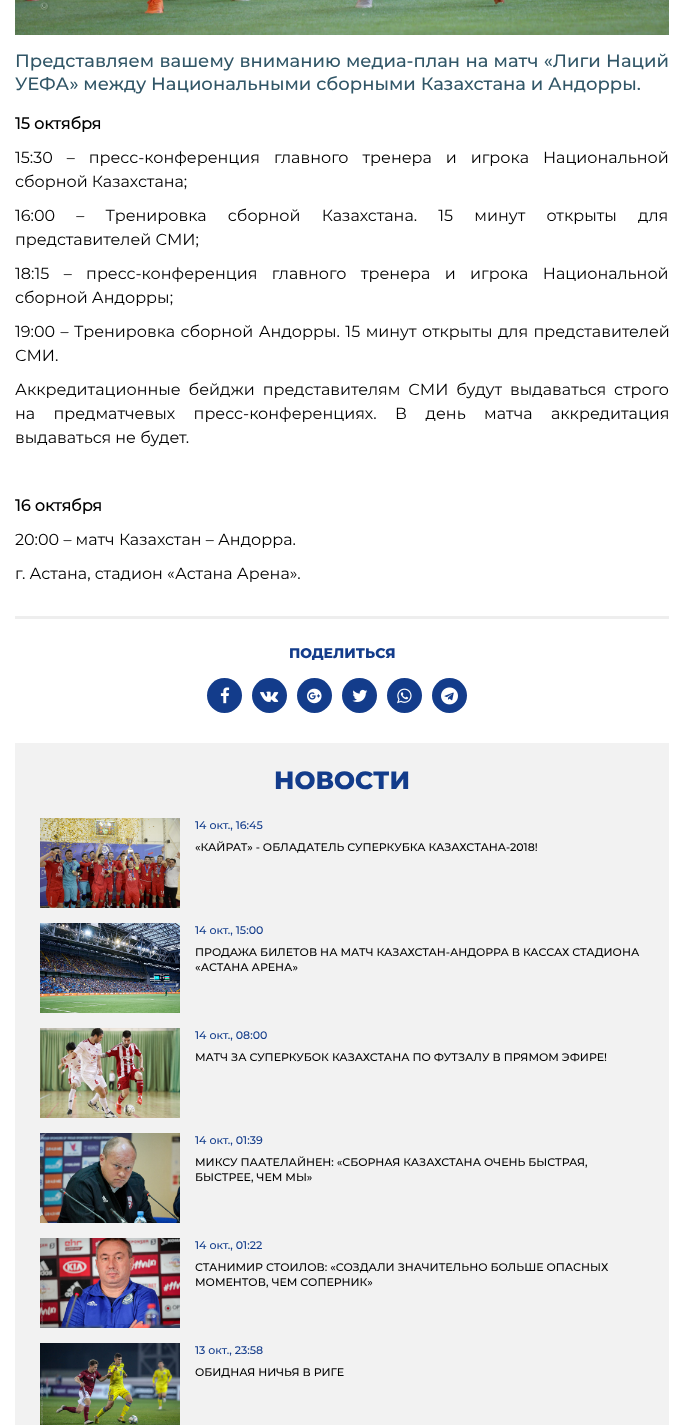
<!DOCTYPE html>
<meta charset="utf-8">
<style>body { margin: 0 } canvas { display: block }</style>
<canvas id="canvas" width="684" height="1425"></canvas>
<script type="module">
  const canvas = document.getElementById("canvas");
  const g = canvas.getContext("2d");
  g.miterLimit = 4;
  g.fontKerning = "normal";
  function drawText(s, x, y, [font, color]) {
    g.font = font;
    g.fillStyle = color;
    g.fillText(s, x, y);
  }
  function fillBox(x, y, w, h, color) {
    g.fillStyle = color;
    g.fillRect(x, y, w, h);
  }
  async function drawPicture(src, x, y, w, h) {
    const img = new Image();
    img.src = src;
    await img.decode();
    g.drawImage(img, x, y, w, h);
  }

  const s1 = ["500 18px Montserrat", "#315667"];
  const s2 = ["bold 16px Montserrat", "#000000"];
  const s3 = ["16px Montserrat", "#000000"];
  const s4 = ["800 14px Montserrat", "#133C8B"];
  const s5 = ["800 25px Montserrat", "#133C8B"];
  const s6 = ["500 11px Montserrat", "#133C8B"];
  const s7 = ["500 11px Montserrat", "#000000"];

  fillBox(0, 0, 684, 1425, "#FFFFFF");
  await drawPicture("pic1.png", 15, 0, 654, 35);
  g.wordSpacing = "0.5px";
  drawText("Представляем вашему вниманию медиа-план на матч «Лиги Наций", 15, 67, s1);
  g.wordSpacing = "0px";
  drawText("УЕФА» между Национальными сборными Казахстана и Андорры.", 15, 90, s1);
  drawText("15 октября", 15, 129, s2);
  g.wordSpacing = "9.75px";
  drawText("15:30 – пресс-конференция главного тренера и игрока Национальной", 15, 163, s3);
  g.wordSpacing = "0px";
  drawText("сборной Казахстана;", 15, 187, s3);
  g.wordSpacing = "17px";
  drawText("16:00 – Тренировка сборной Казахстана. 15 минут открыты для", 15, 221, s3);
  g.wordSpacing = "0px";
  drawText("представителей СМИ;", 15, 245, s3);
  g.wordSpacing = "10.25px";
  drawText("18:15 – пресс-конференция главного тренера и игрока Национальной", 15, 279, s3);
  g.wordSpacing = "0px";
  drawText("сборной Андорры;", 15, 303, s3);
  g.wordSpacing = "1.25px";
  drawText("19:00 – Тренировка сборной Андорры. 15 минут открыты для представителей", 15, 337, s3);
  g.wordSpacing = "0px";
  drawText("СМИ.", 15, 361, s3);
  g.wordSpacing = "3.75px";
  drawText("Аккредитационные бейджи представителям СМИ будут выдаваться строго", 15, 395, s3);
  g.wordSpacing = "14.25px";
  drawText("на предматчевых пресс-конференциях. В день матча аккредитация", 15, 419, s3);
  g.wordSpacing = "0px";
  drawText("выдаваться не будет.", 15, 443, s3);
  drawText("16 октября", 15, 511, s2);
  drawText("20:00 – матч Казахстан – Андорра.", 15, 545, s3);
  drawText("г. Астана, стадион «Астана Арена».", 15, 579, s3);
  fillBox(15, 616, 654, 3, "#EEEEEE");
  drawText("ПОДЕЛИТЬСЯ", 289, 658, s4);
  g.beginPath();
  g.arc(224.5, 695.5, 17.5, 0, Math.PI * 2);
  g.fill();
  await drawPicture("pic2.png", 220, 687, 10, 17);
  g.beginPath();
  g.arc(269.5, 695.5, 17.5, 0, Math.PI * 2);
  g.fill();
  await drawPicture("pic3.png", 260, 691, 19, 11);
  g.beginPath();
  g.arc(314.5, 695.5, 17.5, 0, Math.PI * 2);
  g.fill();
  await drawPicture("pic4.png", 307, 688, 15, 16);
  g.beginPath();
  g.arc(359.5, 695.5, 17.5, 0, Math.PI * 2);
  g.fill();
  await drawPicture("pic5.png", 352, 689, 16, 13);
  g.beginPath();
  g.arc(404.5, 695.5, 17.5, 0, Math.PI * 2);
  g.fill();
  await drawPicture("pic6.png", 397, 688, 15, 16);
  g.beginPath();
  g.arc(449.5, 695.5, 17.5, 0, Math.PI * 2);
  g.fill();
  await drawPicture("pic7.png", 441, 687, 17, 18);
  fillBox(15, 743, 654, 682, "#F2F2F2");
  drawText("НОВОСТИ", 274, 789, s5);
  await drawPicture("pic8.png", 40, 818, 140, 90);
  drawText("14 окт., 16:45", 195, 829, s6);
  drawText("«КАЙРАТ» - ОБЛАДАТЕЛЬ СУПЕРКУБКА КАЗАХСТАНА-2018!", 195, 851, s7);
  await drawPicture("pic9.png", 40, 923, 140, 90);
  drawText("14 окт., 15:00", 195, 934, s6);
  drawText("ПРОДАЖА БИЛЕТОВ НА МАТЧ КАЗАХСТАН-АНДОРРА В КАССАХ СТАДИОНА", 195, 956, s7);
  drawText("«АСТАНА АРЕНА»", 195, 971, s7);
  await drawPicture("pic10.png", 40, 1028, 140, 90);
  drawText("14 окт., 08:00", 195, 1039, s6);
  drawText("МАТЧ ЗА СУПЕРКУБОК КАЗАХСТАНА ПО ФУТЗАЛУ В ПРЯМОМ ЭФИРЕ!", 195, 1061, s7);
  await drawPicture("pic11.png", 40, 1133, 140, 90);
  drawText("14 окт., 01:39", 195, 1144, s6);
  drawText("МИКСУ ПААТЕЛАЙНЕН: «СБОРНАЯ КАЗАХСТАНА ОЧЕНЬ БЫСТРАЯ,", 195, 1166, s7);
  drawText("БЫСТРЕЕ, ЧЕМ МЫ»", 195, 1181, s7);
  await drawPicture("pic12.png", 40, 1238, 140, 90);
  drawText("14 окт., 01:22", 195, 1249, s6);
  drawText("СТАНИМИР СТОИЛОВ: «СОЗДАЛИ ЗНАЧИТЕЛЬНО БОЛЬШЕ ОПАСНЫХ", 195, 1271, s7);
  drawText("МОМЕНТОВ, ЧЕМ СОПЕРНИК»", 195, 1286, s7);
  await drawPicture("pic13.png", 40, 1343, 140, 82);
  drawText("13 окт., 23:58", 195, 1354, s6);
  drawText("ОБИДНАЯ НИЧЬЯ В РИГЕ", 195, 1376, s7);
</script>
